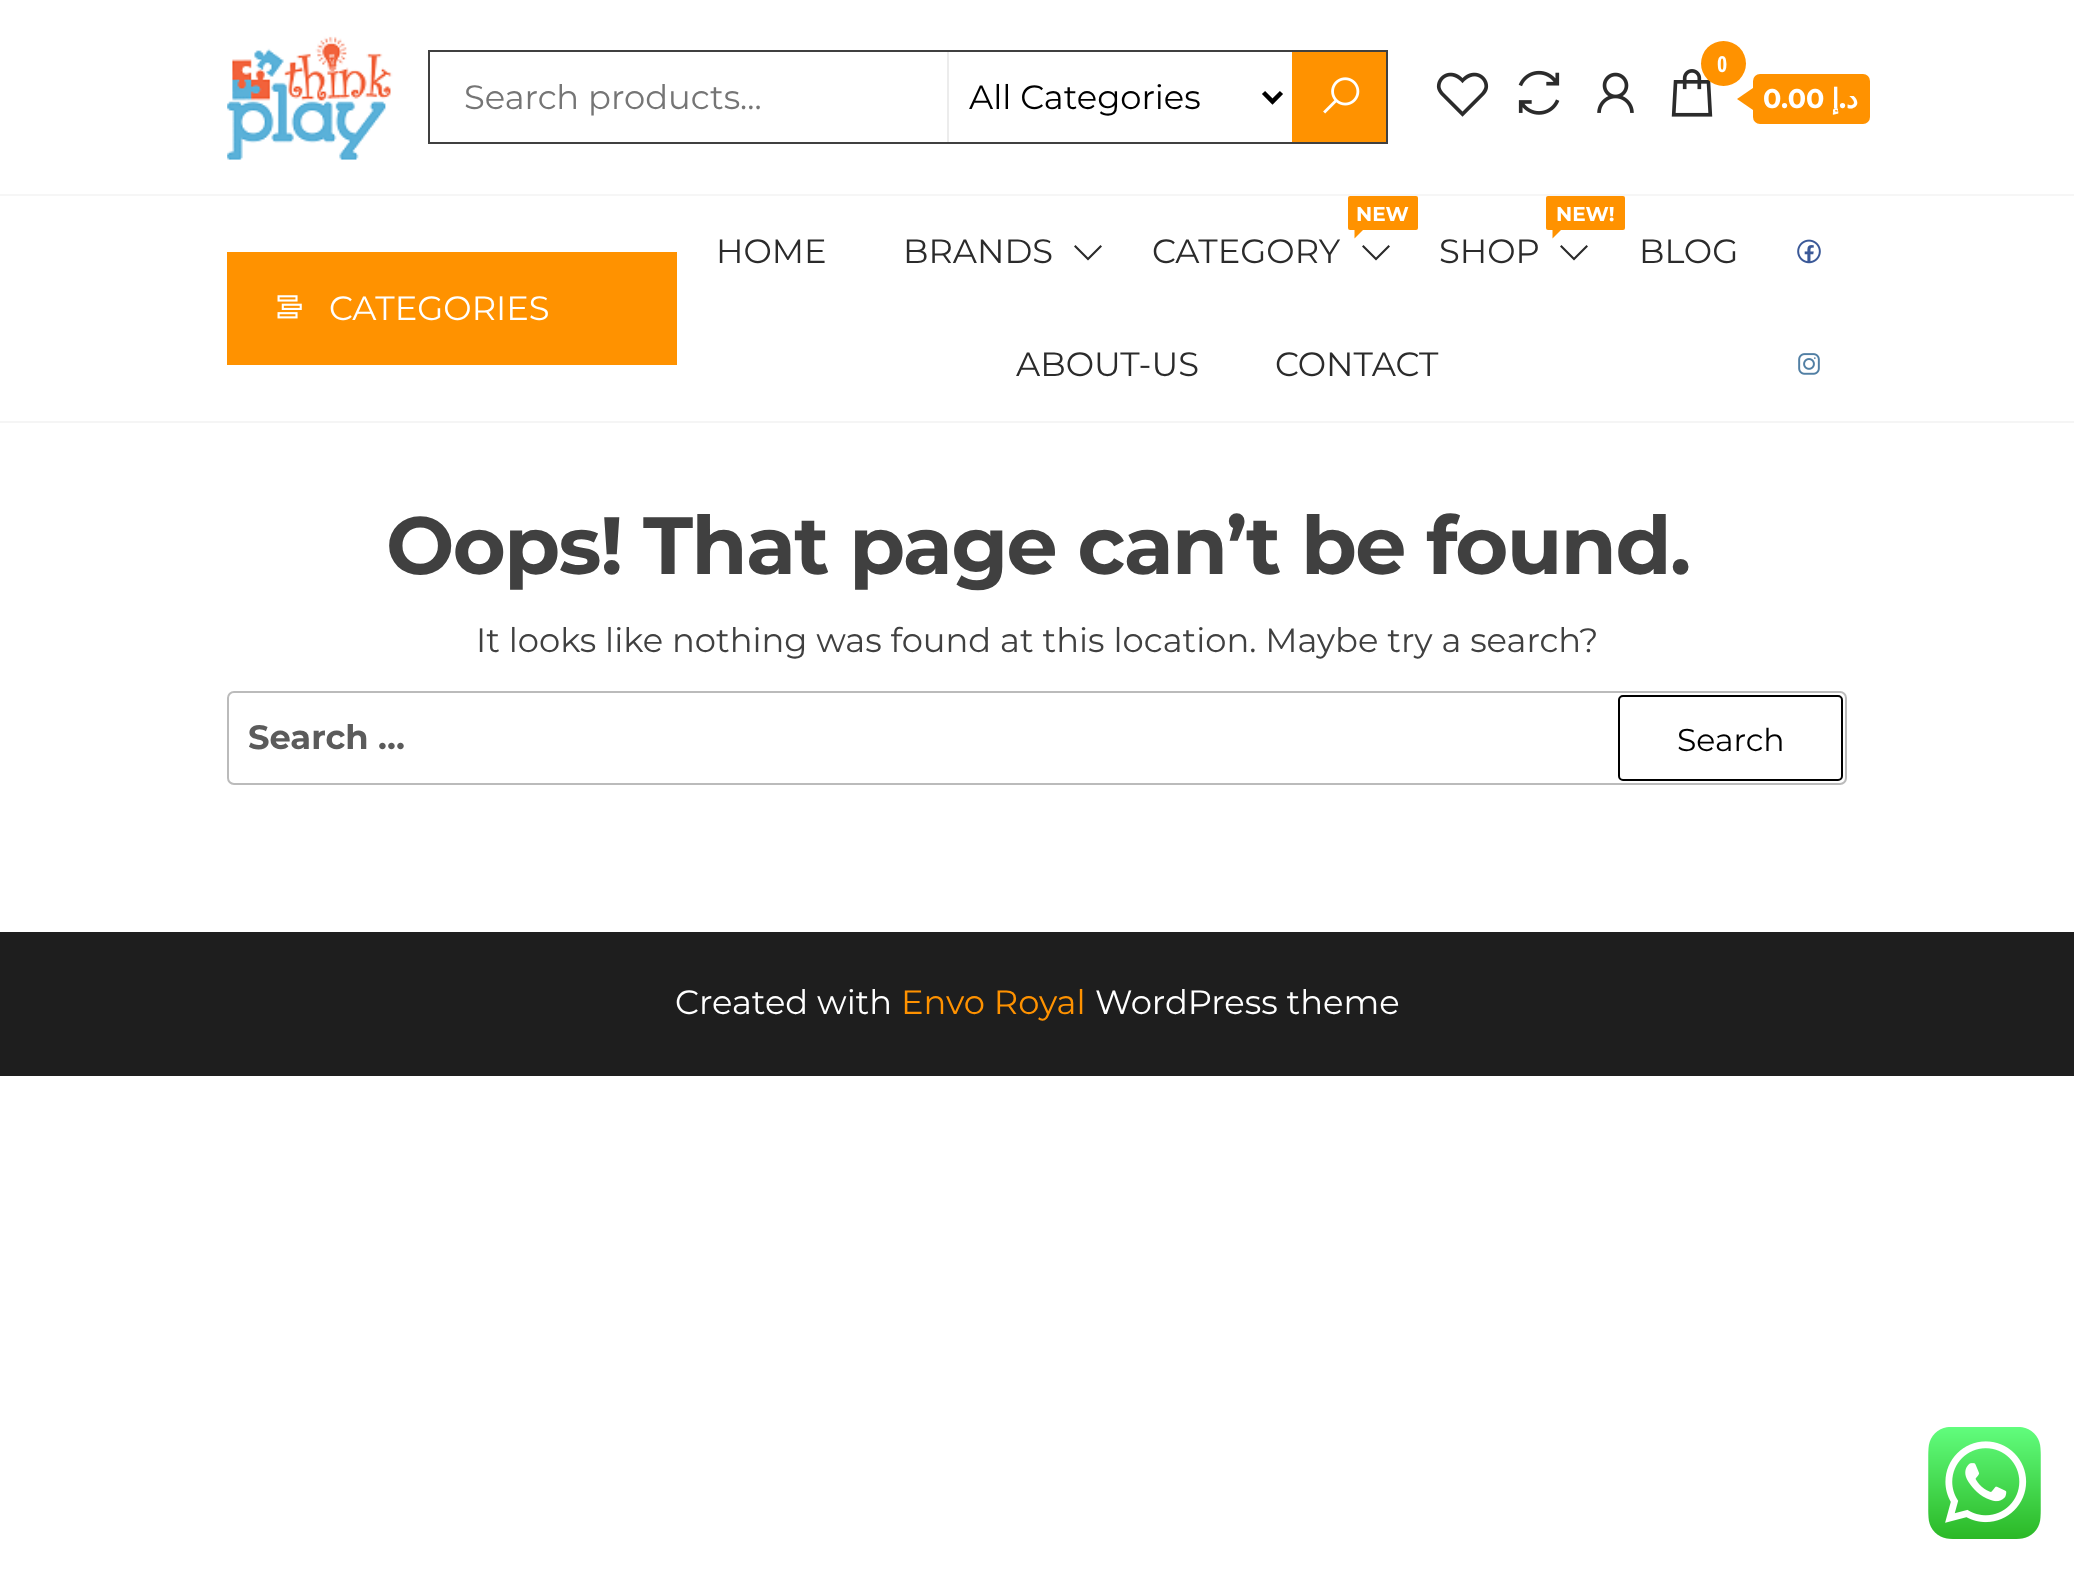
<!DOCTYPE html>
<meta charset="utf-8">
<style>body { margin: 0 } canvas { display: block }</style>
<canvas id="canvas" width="2074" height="1572"></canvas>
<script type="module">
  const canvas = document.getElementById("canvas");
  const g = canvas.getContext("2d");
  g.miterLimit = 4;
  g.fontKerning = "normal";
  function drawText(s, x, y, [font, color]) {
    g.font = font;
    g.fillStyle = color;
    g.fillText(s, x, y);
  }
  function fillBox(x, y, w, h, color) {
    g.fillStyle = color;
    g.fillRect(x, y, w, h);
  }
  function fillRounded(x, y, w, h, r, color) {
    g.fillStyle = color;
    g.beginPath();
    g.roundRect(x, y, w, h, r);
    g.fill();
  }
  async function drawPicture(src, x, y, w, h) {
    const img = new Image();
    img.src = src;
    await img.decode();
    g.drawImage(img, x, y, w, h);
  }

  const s1 = ["33.75px Montserrat", "#757575"];
  const s2 = ["33.75px Montserrat", "#000000"];
  const s3 = ["bold 22px Open Sans Condensed", "#FFFFFF"];
  const s4 = ["bold 27px Montserrat", "#FFFFFF"];
  const s5 = ["bold 27px DejaVu Sans", "#FFFFFF"];
  const s6 = ["33.75px Montserrat", "#FFFFFF"];
  const s7 = ["33.75px Montserrat", "#2B2B2B"];
  const s8 = ["bold 20px Montserrat", "#FFFFFF"];
  const s9 = ["bold 81px Montserrat", "#404040"];
  const s10 = ["33.75px Montserrat", "#404040"];
  const s11 = ["bold 33.75px Montserrat", "#5B5B5B"];
  const s12 = ["31.5px Montserrat", "#000000"];
  const s13 = ["33.75px Montserrat", "#FF9200"];

  fillBox(0, 0, 2074, 1572, "#FFFFFF");
  fillBox(0, 194, 2074, 2, "#F6F6F6");
  await drawPicture("pic1.png", 227, 36, 166, 124);
  g.strokeStyle = "#404040";
  g.lineWidth = 2;
  g.strokeRect(429, 51, 958, 92);
  drawText("Search products...", 464, 109, s1);
  fillBox(947, 52, 2, 90, "#ECECEC");
  g.beginPath();
  g.moveTo(1263.5, 92.5);
  g.lineTo(1272.5, 101.5);
  g.lineTo(1281.5, 92.5);
  g.strokeStyle = "#000000";
  g.lineWidth = 4.5;
  g.stroke();
  drawText("All Categories", 969, 109, s2);
  fillBox(1292, 52, 94, 90, "#FF9200");
  await drawPicture("pic2.png", 1323, 77, 37, 37);
  await drawPicture("pic3.png", 1436, 72, 53, 45);
  await drawPicture("pic4.png", 1518, 70, 42, 45);
  await drawPicture("pic5.png", 1597, 72, 37, 41);
  await drawPicture("pic6.png", 1671, 69, 42, 48);
  g.beginPath();
  g.arc(1723.5, 63.5, 22.5, 0, Math.PI * 2);
  g.fill();
  drawText("0", 1717, 72, s3);
  fillRounded(1753, 74, 117, 50, 7, "#FF9200");
  g.beginPath();
  g.moveTo(1753, 88);
  g.lineTo(1753, 110);
  g.lineTo(1737, 99);
  g.closePath();
  g.fill();
  drawText("0.00", 1763, 108, s4);
  g.direction = "rtl";
  drawText("إ", 1839, 108, s5);
  drawText(".", 1846, 108, s4);
  drawText("د", 1858, 108, s5);
  fillBox(0, 421, 2074, 2, "#F5F5F5");
  fillBox(227, 252, 450, 113, "#FF9200");
  await drawPicture("pic7.png", 277, 295, 25, 24);
  g.direction = "ltr";
  drawText("CATEGORIES", 329, 320, s6);
  drawText("HOME", 716, 263, s7);
  drawText("BRANDS", 903, 263, s7);
  g.beginPath();
  g.moveTo(1075.5, 245);
  g.lineTo(1074, 246.5);
  g.lineTo(1088, 260.5);
  g.lineTo(1102, 246.5);
  g.lineTo(1100.5, 245);
  g.lineTo(1088, 257.5);
  g.closePath();
  g.fill();
  fillRounded(1348, 196, 70, 34, 2, "#FF9200");
  drawText("NEW", 1356, 221, s8);
  g.fillStyle = "#FF9200";
  g.beginPath();
  g.moveTo(1354.5, 227);
  g.lineTo(1366, 227);
  g.lineTo(1354.5, 238.5);
  g.closePath();
  g.fill();
  drawText("CATEGORY", 1152, 263, s7);
  g.beginPath();
  g.moveTo(1363.5, 245);
  g.lineTo(1362, 246.5);
  g.lineTo(1376, 260.5);
  g.lineTo(1390, 246.5);
  g.lineTo(1388.5, 245);
  g.lineTo(1376, 257.5);
  g.closePath();
  g.fill();
  fillRounded(1546, 196, 79, 34, 2, "#FF9200");
  drawText("NEW!", 1556, 221, s8);
  g.fillStyle = "#FF9200";
  g.beginPath();
  g.moveTo(1552.5, 227);
  g.lineTo(1564, 227);
  g.lineTo(1552.5, 238.5);
  g.closePath();
  g.fill();
  drawText("SHOP", 1439, 263, s7);
  g.beginPath();
  g.moveTo(1561.5, 245);
  g.lineTo(1560, 246.5);
  g.lineTo(1574, 260.5);
  g.lineTo(1588, 246.5);
  g.lineTo(1586.5, 245);
  g.lineTo(1574, 257.5);
  g.closePath();
  g.fill();
  drawText("BLOG", 1639, 263, s7);
  drawText("ABOUT-US", 1016, 376, s7);
  drawText("CONTACT", 1275, 376, s7);
  await drawPicture("pic8.png", 1797, 239, 24, 25);
  await drawPicture("pic9.png", 1798, 353, 22, 22);
  g.letterSpacing = "-1.6px";
  drawText("Oops! That page can’t be found.", 386, 574, s9);
  g.letterSpacing = "0px";
  drawText("It looks like nothing was found at this location. Maybe try a search?", 476, 652, s10);
  g.beginPath();
  g.roundRect(228, 692, 1618, 92, 6);
  g.strokeStyle = "#BBBBBB";
  g.lineWidth = 2;
  g.stroke();
  drawText("Search …", 248, 749, s11);
  g.beginPath();
  g.roundRect(1619, 696, 223, 84, 4);
  g.strokeStyle = "#000000";
  g.stroke();
  drawText("Search", 1677, 751, s12);
  fillBox(0, 932, 2074, 144, "#1E1E1E");
  drawText("Created with", 675, 1014, s6);
  drawText("Envo Royal", 901, 1014, s13);
  drawText("WordPress theme", 1095, 1014, s6);
  await drawPicture("pic10.png", 1928, 1427, 113, 112);
</script>
